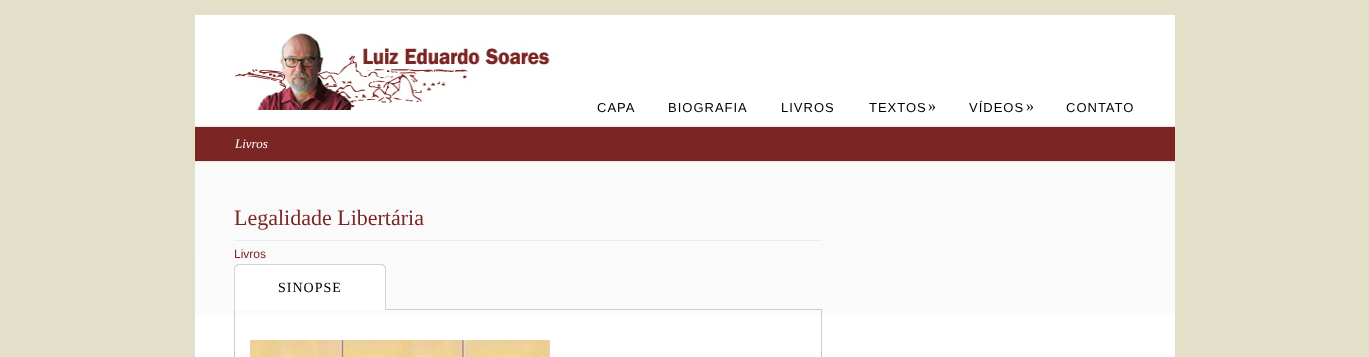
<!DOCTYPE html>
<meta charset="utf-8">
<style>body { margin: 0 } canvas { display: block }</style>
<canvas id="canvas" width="1369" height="357"></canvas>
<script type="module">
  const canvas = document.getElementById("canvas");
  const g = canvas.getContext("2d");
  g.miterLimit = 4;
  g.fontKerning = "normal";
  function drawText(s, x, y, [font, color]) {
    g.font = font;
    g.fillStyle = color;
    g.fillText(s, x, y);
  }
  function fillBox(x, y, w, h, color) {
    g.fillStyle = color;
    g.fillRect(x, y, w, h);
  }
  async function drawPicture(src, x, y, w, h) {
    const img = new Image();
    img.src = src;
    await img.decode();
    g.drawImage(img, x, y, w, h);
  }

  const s1 = ["13px Liberation Sans", "#000000"];
  const s2 = ["16px Liberation Serif", "#000000"];
  const s3 = ["italic 13px Liberation Serif", "#FFFFFF"];
  const s4 = ["22px Liberation Serif", "#7B2624"];
  const s5 = ["12px Liberation Sans", "#7B2624"];
  const s6 = ["14px Liberation Serif", "#000000"];

  fillBox(0, 0, 1369, 357, "#E2E0C9");
  fillBox(195, 15, 980, 342, "#FFFFFF");
  await drawPicture("pic1.png", 235, 30, 317, 80);
  g.letterSpacing = "1px";
  drawText("CAPA", 597, 112, s1);
  drawText("BIOGRAFIA", 668, 112, s1);
  drawText("LIVROS", 781, 112, s1);
  drawText("TEXTOS", 869, 112, s1);
  drawText("»", 928, 111, s2);
  drawText("VÍDEOS", 969, 112, s1);
  drawText("»", 1026, 111, s2);
  drawText("CONTATO", 1066, 112, s1);
  fillBox(195, 127, 980, 34, "#7B2624");
  fillBox(195, 126, 980, 1, "#E6E6E6");
  fillBox(195, 161, 980, 1, "#E6E6E6");
  g.letterSpacing = "0px";
  drawText("Livros", 235, 148, s3);
  await drawPicture("pic2.png", 195, 162, 980, 153);
  drawText("Legalidade Libertária", 234, 225, s4);
  fillBox(234, 240, 588, 1, "#EBEBEB");
  drawText("Livros", 234, 258, s5);
  fillBox(386, 309, 436, 1, "#CDCDCD");
  g.fillStyle = "#FFFFFF";
  g.beginPath();
  g.roundRect(235, 265, 150, 45, [4, 4, 0, 0]);
  g.fill();
  g.fillStyle = "#D5D5D5";
  g.beginPath();
  g.moveTo(239, 264);
  g.lineTo(381, 264);
  g.bezierCurveTo(384, 264, 386, 266, 386, 269);
  g.lineTo(386, 310);
  g.lineTo(234, 310);
  g.lineTo(234, 269);
  g.bezierCurveTo(234, 266, 236, 264, 239, 264);
  g.closePath();
  g.moveTo(239, 265);
  g.lineTo(381, 265);
  g.bezierCurveTo(383, 265, 385, 267, 385, 269);
  g.lineTo(385, 310);
  g.lineTo(235, 310);
  g.lineTo(235, 269);
  g.bezierCurveTo(235, 267, 237, 265, 239, 265);
  g.closePath();
  g.fill("evenodd");
  g.letterSpacing = "1px";
  drawText("SINOPSE", 278, 292, s6);
  fillBox(821, 310, 1, 47, "#CCCCCC");
  fillBox(234, 310, 1, 47, "#CCCCCC");
  await drawPicture("pic3.png", 250, 340, 300, 17);
</script>
